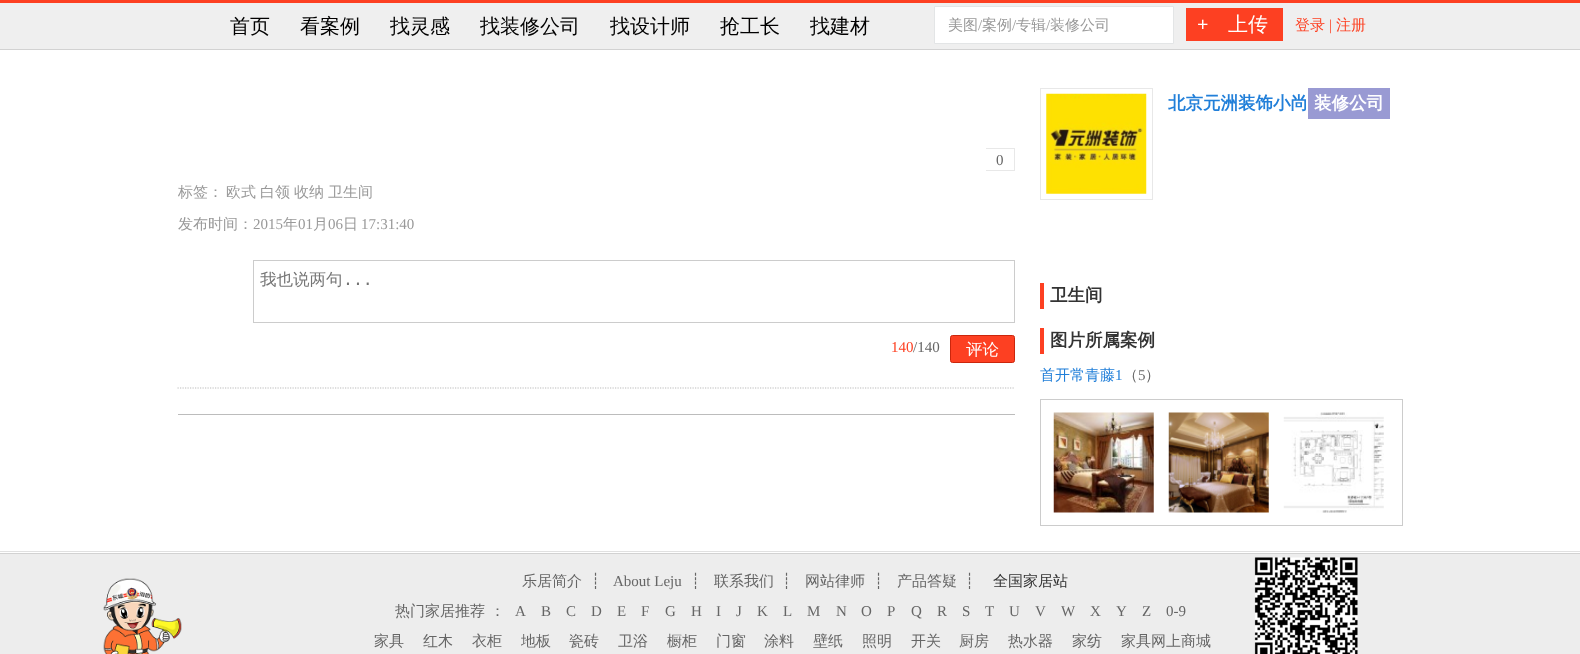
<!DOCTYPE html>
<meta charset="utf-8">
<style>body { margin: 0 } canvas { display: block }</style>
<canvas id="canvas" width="1580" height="654"></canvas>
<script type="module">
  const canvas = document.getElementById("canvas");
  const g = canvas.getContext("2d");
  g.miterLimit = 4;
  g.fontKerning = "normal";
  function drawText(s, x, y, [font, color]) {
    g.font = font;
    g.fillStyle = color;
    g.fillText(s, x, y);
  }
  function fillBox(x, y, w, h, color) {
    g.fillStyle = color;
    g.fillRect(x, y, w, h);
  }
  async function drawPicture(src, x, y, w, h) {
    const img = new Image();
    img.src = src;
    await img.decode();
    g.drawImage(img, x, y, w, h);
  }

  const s1 = ["500 20px WenQuanYi Zen Hei", "#010000"];
  const s2 = ["500 15px WenQuanYi Zen Hei", "#999999"];
  const s3 = ["15px Liberation Serif", "#999999"];
  const s4 = ["bold 20px Liberation Serif", "#FFFFFF"];
  const s5 = ["500 20px WenQuanYi Zen Hei", "#FFFFFF"];
  const s6 = ["500 15px WenQuanYi Zen Hei", "#FD4022"];
  const s7 = ["15px Liberation Serif", "#FD4022"];
  const s8 = ["15px Liberation Serif", "#666666"];
  const s9 = ["500 16.5px WenQuanYi Zen Hei", "#757575"];
  const s10 = ["16.5px DejaVu Sans Mono", "#757575"];
  const s11 = ["500 16.5px WenQuanYi Zen Hei", "#FFFFFF"];
  const s12 = ["bold 17.5px WenQuanYi Zen Hei", "#217FD9"];
  const s13 = ["bold 17.5px WenQuanYi Zen Hei", "#FFFFFF"];
  const s14 = ["bold 17.5px WenQuanYi Zen Hei", "#333333"];
  const s15 = ["500 15px WenQuanYi Zen Hei", "#217FD9"];
  const s16 = ["15px Liberation Serif", "#217FD9"];
  const s17 = ["500 15px WenQuanYi Zen Hei", "#666666"];
  const s18 = ["15px DejaVu Sans", "#666666"];
  const s19 = ["500 15px WenQuanYi Zen Hei", "#333333"];

  fillBox(0, 0, 1580, 654, "#FFFFFF");
  fillBox(0, 3, 1580, 46, "#EFEFEF");
  fillBox(0, 0, 1580, 3, "#FD4022");
  fillBox(0, 49, 1580, 1, "#D2D2D2");
  drawText("首页", 230, 33, s1);
  drawText("看案例", 300, 33, s1);
  drawText("找灵感", 390, 33, s1);
  drawText("找装修公司", 480, 33, s1);
  drawText("找设计师", 610, 33, s1);
  drawText("抢工长", 720, 33, s1);
  drawText("找建材", 810, 33, s1);
  g.fillStyle = "#FFFFFF";
  g.beginPath();
  g.rect(934.5, 6.5, 239, 37);
  g.fill();
  g.strokeStyle = "#E3E5E6";
  g.stroke();
  drawText("美图", 948, 30, s2);
  drawText("/", 978, 30, s3);
  drawText("案例", 982, 30, s2);
  drawText("/", 1012, 30, s3);
  drawText("专辑", 1016, 30, s2);
  drawText("/", 1046, 30, s3);
  drawText("装修公司", 1050, 30, s2);
  fillBox(1186, 8, 97, 33, "#FD4022");
  drawText("+", 1197, 31, s4);
  drawText("上传", 1228, 31, s5);
  drawText("登录", 1295, 30, s6);
  drawText("|", 1329, 30, s7);
  drawText("注册", 1336, 30, s6);
  fillBox(986, 148, 29, 1, "#E8E8E8");
  fillBox(1014, 148, 1, 23, "#E8E8E8");
  fillBox(986, 170, 29, 1, "#E8E8E8");
  drawText("0", 996, 165, s8);
  drawText("标签：", 178, 197, s2);
  drawText("欧式", 226, 197, s2);
  drawText("白领", 260, 197, s2);
  drawText("收纳", 294, 197, s2);
  drawText("卫生间", 328, 197, s2);
  drawText("发布时间：", 178, 229, s2);
  drawText("2015", 253, 229, s3);
  drawText("年", 283, 229, s2);
  drawText("01", 298, 229, s3);
  drawText("月", 313, 229, s2);
  drawText("06", 328, 229, s3);
  drawText("日", 343, 229, s2);
  drawText("17:31:40", 361, 229, s3);
  g.strokeStyle = "#CCCCCC";
  g.strokeRect(253.5, 260.5, 761, 62);
  drawText("我也说两句", 260, 285, s9);
  drawText("...", 343, 285, s10);
  drawText("140", 891, 352, s7);
  drawText("/140", 913, 352, s8);
  g.fillStyle = "#FD4022";
  g.beginPath();
  g.roundRect(950.5, 335.5, 64, 27, 2);
  g.fill();
  g.strokeStyle = "#CB260C";
  g.stroke();
  drawText("评论", 966, 355, s11);
  g.beginPath();
  g.moveTo(177.5, 388);
  g.lineTo(1015, 388);
  g.strokeStyle = "#BCBCBC";
  g.lineWidth = 1.2;
  g.setLineDash([1.25, 1.25]);
  g.stroke();
  fillBox(178, 414, 837, 1, "#BCBCBC");
  g.strokeStyle = "#E8E8E8";
  g.lineWidth = 1;
  g.setLineDash([]);
  g.strokeRect(1040.5, 88.5, 112, 111);
  await drawPicture("pic1.png", 1046, 93, 101, 101);
  drawText("北京元洲装饰小尚", 1168, 109, s12);
  fillBox(1308, 88, 82, 31, "#999AD3");
  drawText("装修公司", 1314, 109, s13);
  fillBox(1040, 283, 4, 26, "#FD4022");
  drawText("卫生间", 1050, 301, s14);
  fillBox(1040, 328, 4, 26, "#FD4022");
  drawText("图片所属案例", 1050, 346, s14);
  drawText("首开常青藤", 1040, 380, s15);
  drawText("1", 1115, 380, s16);
  drawText("（", 1123, 380, s17);
  drawText("5", 1138, 380, s8);
  drawText("）", 1145, 380, s17);
  g.strokeStyle = "#CCCCCC";
  g.strokeRect(1040.5, 399.5, 362, 126);
  await drawPicture("pic2.png", 1053, 412, 101, 101);
  await drawPicture("pic3.png", 1168, 412, 101, 101);
  await drawPicture("pic4.png", 1283, 412, 101, 101);
  fillBox(0, 551, 1580, 1, "#E0E0E0");
  fillBox(0, 554, 1580, 100, "#EDEDED");
  fillBox(0, 553, 1580, 1, "#D2D2D2");
  drawText("乐居简介", 522, 586, s17);
  drawText("┊", 591, 586, s18);
  drawText("About Leju", 613, 586, s8);
  drawText("┊", 691, 586, s18);
  drawText("联系我们", 714, 586, s17);
  drawText("┊", 782, 586, s18);
  drawText("网站律师", 805, 586, s17);
  drawText("┊", 874, 586, s18);
  drawText("产品答疑", 897, 586, s17);
  drawText("┊", 965, 586, s18);
  await drawPicture("pic5.png", 103, 578, 79, 76);
  drawText("全国家居站", 993, 586, s19);
  await drawPicture("pic6.png", 1254, 557, 104, 97);
  drawText("热门家居推荐", 395, 616, s17);
  drawText("：", 490, 616, s17);
  drawText("A", 515, 616, s8);
  drawText("B", 541, 616, s8);
  drawText("C", 566, 616, s8);
  drawText("D", 591, 616, s8);
  drawText("E", 617, 616, s8);
  drawText("F", 641, 616, s8);
  drawText("G", 665, 616, s8);
  drawText("H", 691, 616, s8);
  drawText("I", 716, 616, s8);
  drawText("J", 736, 616, s8);
  drawText("K", 757, 616, s8);
  drawText("L", 783, 616, s8);
  drawText("M", 807, 616, s8);
  drawText("N", 836, 616, s8);
  drawText("O", 861, 616, s8);
  drawText("P", 887, 616, s8);
  drawText("Q", 911, 616, s8);
  drawText("R", 937, 616, s8);
  drawText("S", 962, 616, s8);
  drawText("T", 985, 616, s8);
  drawText("U", 1009, 616, s8);
  drawText("V", 1035, 616, s8);
  drawText("W", 1061, 616, s8);
  drawText("X", 1090, 616, s8);
  drawText("Y", 1116, 616, s8);
  drawText("Z", 1142, 616, s8);
  drawText("0-9", 1166, 616, s8);
  drawText("家具", 374, 646, s17);
  drawText("红木", 423, 646, s17);
  drawText("衣柜", 472, 646, s17);
  drawText("地板", 521, 646, s17);
  drawText("瓷砖", 569, 646, s17);
  drawText("卫浴", 618, 646, s17);
  drawText("橱柜", 667, 646, s17);
  drawText("门窗", 716, 646, s17);
  drawText("涂料", 764, 646, s17);
  drawText("壁纸", 813, 646, s17);
  drawText("照明", 862, 646, s17);
  drawText("开关", 911, 646, s17);
  drawText("厨房", 959, 646, s17);
  drawText("热水器", 1008, 646, s17);
  drawText("家纺", 1072, 646, s17);
  drawText("家具网上商城", 1121, 646, s17);
</script>
